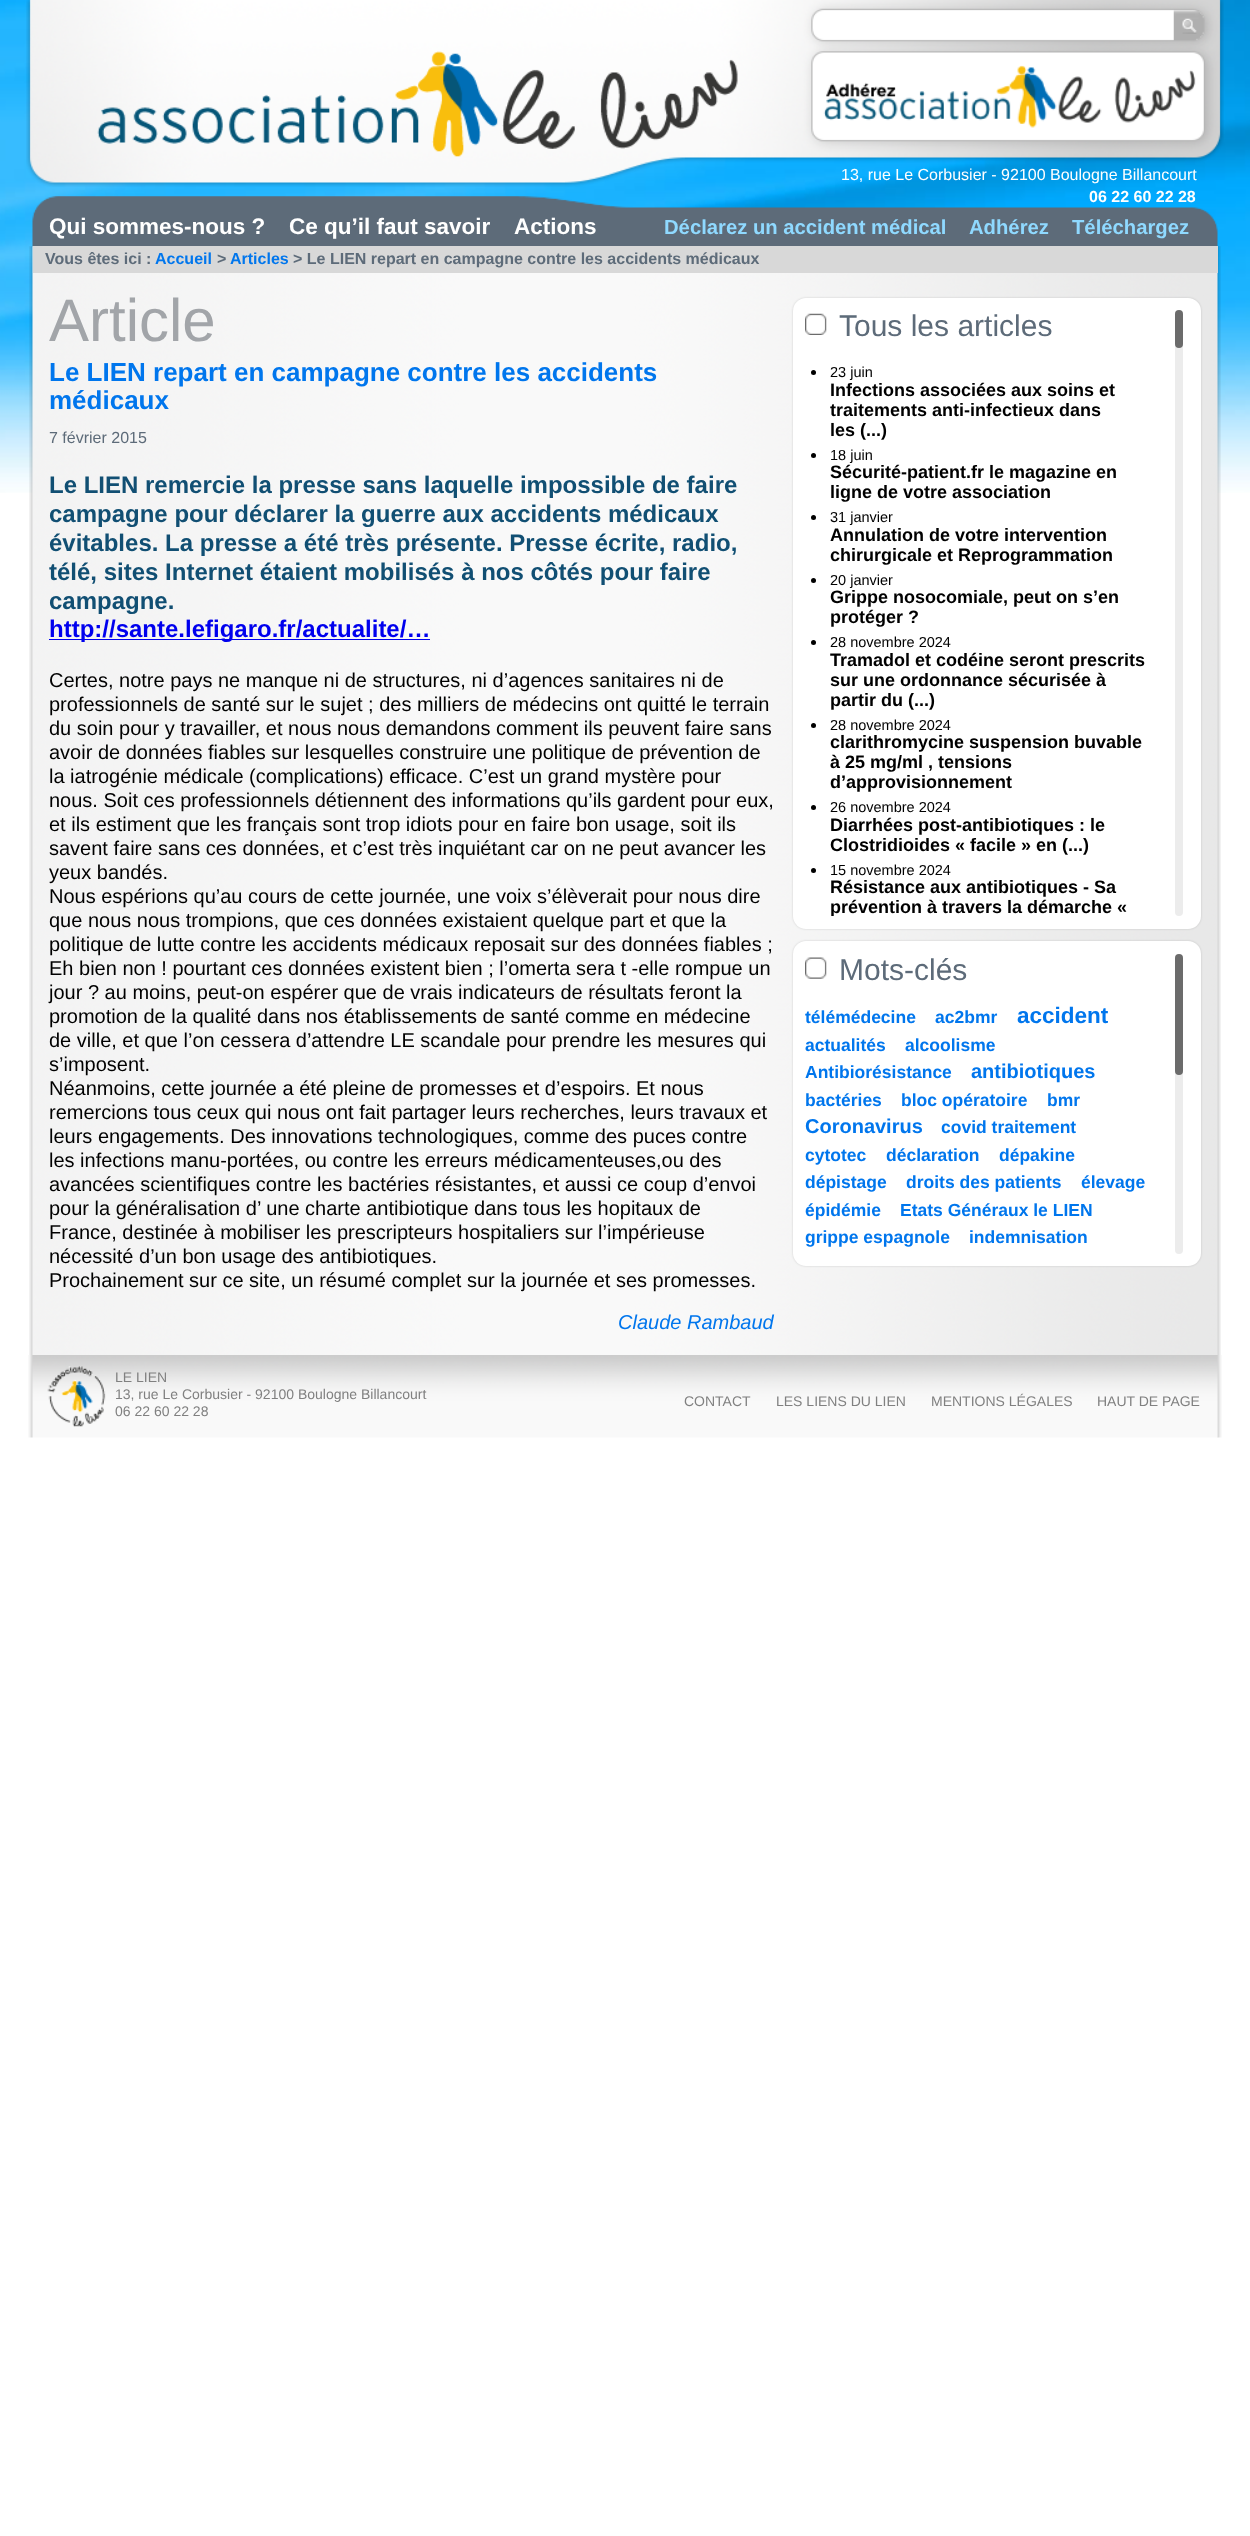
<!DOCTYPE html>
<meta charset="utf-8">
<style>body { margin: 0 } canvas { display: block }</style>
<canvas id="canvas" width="1250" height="2536"></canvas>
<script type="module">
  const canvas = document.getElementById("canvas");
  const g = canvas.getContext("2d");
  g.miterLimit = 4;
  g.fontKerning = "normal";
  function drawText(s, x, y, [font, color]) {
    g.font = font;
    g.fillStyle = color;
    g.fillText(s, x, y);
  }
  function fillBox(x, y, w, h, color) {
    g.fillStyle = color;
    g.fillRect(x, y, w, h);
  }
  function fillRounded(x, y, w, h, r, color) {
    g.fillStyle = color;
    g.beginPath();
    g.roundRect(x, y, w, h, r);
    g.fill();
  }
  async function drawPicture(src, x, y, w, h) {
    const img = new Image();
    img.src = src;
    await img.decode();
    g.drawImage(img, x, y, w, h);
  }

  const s1 = ["16px Liberation Sans", "#FFFFFF"];
  const s2 = ["bold 16px Liberation Sans", "#FFFFFF"];
  const s3 = ["bold 22.5px Liberation Sans", "#FFFFFF"];
  const s4 = ["bold 20.25px Liberation Sans", "#8FD9FF"];
  const s5 = ["bold 16px Liberation Sans", "#5D6B79"];
  const s6 = ["bold 16px Liberation Sans", "#0076ED"];
  const s7 = ["60px Liberation Sans", "#A2A5A9"];
  const s8 = ["bold 26px Liberation Sans", "#0076ED"];
  const s9 = ["16px Liberation Sans", "#5D6B79"];
  const s10 = ["bold 24px Liberation Sans", "#114F73"];
  const s11 = ["bold 24px Liberation Sans", "#0000EE"];
  const s12 = ["20px Liberation Sans", "#000000"];
  const s13 = ["italic 20px Liberation Sans", "#0076ED"];
  const s14 = ["30px Liberation Sans", "#5D6B79"];
  const s15 = ["14.5px Liberation Sans", "#000000"];
  const s16 = ["bold 18px Liberation Sans", "#000000"];
  const s17 = ["bold 17.5px Liberation Sans", "#0076ED"];
  const s18 = ["bold 22.5px Liberation Sans", "#0076ED"];
  const s19 = ["bold 20px Liberation Sans", "#0076ED"];
  const s20 = ["14px Liberation Sans", "#808080"];

  fillBox(0, 0, 1250, 2536, "#FFFFFF");
  await drawPicture("pic1.png", 0, 0, 1250, 493);
  await drawPicture("pic2.png", 26, 0, 1198, 187);
  await drawPicture("pic3.png", 97, 51, 641, 106);
  await drawPicture("pic4.png", 823, 65, 373, 63);
  drawText("13, rue Le Corbusier - 92100 Boulogne Billancourt", 841, 180, s1);
  drawText("06 22 60 22 28", 1089, 202, s2);
  await drawPicture("pic5.png", 32, 196, 1186, 51);
  drawText("Qui sommes-nous ?", 49, 234, s3);
  drawText("Ce qu’il faut savoir", 289, 234, s3);
  drawText("Actions", 514, 234, s3);
  drawText("Déclarez un accident médical", 664, 234, s4);
  drawText("Adhérez", 969, 234, s4);
  drawText("Téléchargez", 1072, 234, s4);
  await drawPicture("pic6.png", 29, 246, 1192, 1109);
  fillBox(33, 246, 1185, 27, "#D8D8D8");
  drawText("Vous êtes ici :", 45, 264, s5);
  drawText("Accueil", 155, 264, s6);
  drawText(">", 217, 264, s5);
  drawText("Articles", 230, 264, s6);
  drawText("> Le LIEN repart en campagne contre les accidents médicaux", 293, 264, s5);
  drawText("Article", 49, 341, s7);
  drawText("Le LIEN repart en campagne contre les accidents", 49, 381, s8);
  drawText("médicaux", 49, 409, s8);
  drawText("7 février 2015", 49, 443, s9);
  drawText("Le LIEN remercie la presse sans laquelle impossible de faire", 49, 493, s10);
  drawText("campagne pour déclarer la guerre aux accidents médicaux", 49, 522, s10);
  drawText("évitables. La presse a été très présente. Presse écrite, radio,", 49, 551, s10);
  drawText("télé, sites Internet étaient mobilisés à nos côtés pour faire", 49, 580, s10);
  drawText("campagne.", 49, 609, s10);
  fillBox(49, 639, 381, 1, "#0000EE");
  drawText("http://sante.lefigaro.fr/actualite/…", 49, 637, s11);
  drawText("Certes, notre pays ne manque ni de structures, ni d’agences sanitaires ni de", 49, 687, s12);
  drawText("professionnels de santé sur le sujet ; des milliers de médecins ont quitté le terrain", 49, 711, s12);
  drawText("du soin pour y travailler, et nous nous demandons comment ils peuvent faire sans", 49, 735, s12);
  drawText("avoir de données fiables sur lesquelles construire une politique de prévention de", 49, 759, s12);
  drawText("la iatrogénie médicale (complications) efficace. C’est un grand mystère pour", 49, 783, s12);
  drawText("nous. Soit ces professionnels détiennent des informations qu’ils gardent pour eux,", 49, 807, s12);
  drawText("et ils estiment que les français sont trop idiots pour en faire bon usage, soit ils", 49, 831, s12);
  drawText("savent faire sans ces données, et c’est très inquiétant car on ne peut avancer les", 49, 855, s12);
  drawText("yeux bandés.", 49, 879, s12);
  drawText("Nous espérions qu’au cours de cette journée, une voix s’élèverait pour nous dire", 49, 903, s12);
  drawText("que nous nous trompions, que ces données existaient quelque part et que la", 49, 927, s12);
  drawText("politique de lutte contre les accidents médicaux reposait sur des données fiables ;", 49, 951, s12);
  drawText("Eh bien non ! pourtant ces données existent bien ; l’omerta sera t -elle rompue un", 49, 975, s12);
  drawText("jour ? au moins, peut-on espérer que de vrais indicateurs de résultats feront la", 49, 999, s12);
  drawText("promotion de la qualité dans nos établissements de santé comme en médecine", 49, 1023, s12);
  drawText("de ville, et que l’on cessera d’attendre LE scandale pour prendre les mesures qui", 49, 1047, s12);
  drawText("s’imposent.", 49, 1071, s12);
  drawText("Néanmoins, cette journée a été pleine de promesses et d’espoirs. Et nous", 49, 1095, s12);
  drawText("remercions tous ceux qui nous ont fait partager leurs recherches, leurs travaux et", 49, 1119, s12);
  drawText("leurs engagements. Des innovations technologiques, comme des puces contre", 49, 1143, s12);
  drawText("les infections manu-portées, ou contre les erreurs médicamenteuses,ou des", 49, 1167, s12);
  drawText("avancées scientifiques contre les bactéries résistantes, et aussi ce coup d’envoi", 49, 1191, s12);
  drawText("pour la généralisation d’ une charte antibiotique dans tous les hopitaux de", 49, 1215, s12);
  drawText("France, destinée à mobiliser les prescripteurs hospitaliers sur l’impérieuse", 49, 1239, s12);
  drawText("nécessité d’un bon usage des antibiotiques.", 49, 1263, s12);
  drawText("Prochainement sur ce site, un résumé complet sur la journée et ses promesses.", 49, 1287, s12);
  drawText("Claude Rambaud", 618, 1329, s13);
  g.fillStyle = "rgba(0, 0, 0, 0.15)";
  g.filter = "blur(1px)";
  g.beginPath();
  g.roundRect(793, 298, 408, 631, 13);
  g.fill();
  g.filter = "none";
  fillRounded(793, 298, 408, 631, 13, "#FFFFFF");
  await drawPicture("pic7.png", 805, 313, 22, 22);
  drawText("Tous les articles", 839, 336, s14);
  g.fillStyle = "#000000";
  g.beginPath();
  g.arc(813.5, 372.5, 2.5, 0, Math.PI * 2);
  g.fill();
  drawText("23 juin", 830, 377, s15);
  drawText("Infections associées aux soins et", 830, 396, s16);
  drawText("traitements anti-infectieux dans", 830, 416, s16);
  drawText("les (...)", 830, 436, s16);
  g.beginPath();
  g.arc(813.5, 455.5, 2.5, 0, Math.PI * 2);
  g.fill();
  drawText("18 juin", 830, 460, s15);
  drawText("Sécurité-patient.fr le magazine en", 830, 478, s16);
  drawText("ligne de votre association", 830, 498, s16);
  g.beginPath();
  g.arc(813.5, 517.5, 2.5, 0, Math.PI * 2);
  g.fill();
  drawText("31 janvier", 830, 522, s15);
  drawText("Annulation de votre intervention", 830, 541, s16);
  drawText("chirurgicale et Reprogrammation", 830, 561, s16);
  g.beginPath();
  g.arc(813.5, 580.5, 2.5, 0, Math.PI * 2);
  g.fill();
  drawText("20 janvier", 830, 585, s15);
  drawText("Grippe nosocomiale, peut on s’en", 830, 603, s16);
  drawText("protéger ?", 830, 623, s16);
  g.beginPath();
  g.arc(813.5, 642.5, 2.5, 0, Math.PI * 2);
  g.fill();
  drawText("28 novembre 2024", 830, 647, s15);
  drawText("Tramadol et codéine seront prescrits", 830, 666, s16);
  drawText("sur une ordonnance sécurisée à", 830, 686, s16);
  drawText("partir du (...)", 830, 706, s16);
  g.beginPath();
  g.arc(813.5, 725.5, 2.5, 0, Math.PI * 2);
  g.fill();
  drawText("28 novembre 2024", 830, 730, s15);
  drawText("clarithromycine suspension buvable", 830, 748, s16);
  drawText("à 25 mg/ml , tensions", 830, 768, s16);
  drawText("d’approvisionnement", 830, 788, s16);
  g.beginPath();
  g.arc(813.5, 807.5, 2.5, 0, Math.PI * 2);
  g.fill();
  drawText("26 novembre 2024", 830, 812, s15);
  drawText("Diarrhées post-antibiotiques : le", 830, 831, s16);
  drawText("Clostridioides « facile » en (...)", 830, 851, s16);
  g.beginPath();
  g.arc(813.5, 870.5, 2.5, 0, Math.PI * 2);
  g.fill();
  drawText("15 novembre 2024", 830, 875, s15);
  drawText("Résistance aux antibiotiques - Sa", 830, 893, s16);
  g.save();
  g.beginPath();
  g.rect(805, 310, 346, 606);
  g.clip();
  drawText("prévention", 830, 913, s16);
  g.restore();
  drawText("à travers la démarche «", 927, 913, s16);
  fillRounded(1175, 310, 8, 606, 4, "#ECECEC");
  fillRounded(1175, 310, 8, 38, 4, "rgba(64, 64, 64, 0.75)");
  g.fillStyle = "rgba(0, 0, 0, 0.15)";
  g.filter = "blur(1px)";
  g.beginPath();
  g.roundRect(793, 941, 408, 325, 13);
  g.fill();
  g.filter = "none";
  fillRounded(793, 941, 408, 325, 13, "#FFFFFF");
  await drawPicture("pic8.png", 805, 957, 22, 22);
  drawText("Mots-clés", 839, 980, s14);
  drawText("télémédecine", 805, 1023, s17);
  drawText("ac2bmr", 935, 1023, s17);
  drawText("accident", 1017, 1023, s18);
  drawText("actualités", 805, 1051, s17);
  drawText("alcoolisme", 905, 1051, s17);
  drawText("Antibiorésistance", 805, 1078, s17);
  drawText("antibiotiques", 971, 1078, s19);
  drawText("bactéries", 805, 1106, s17);
  drawText("bloc opératoire", 901, 1106, s17);
  drawText("bmr", 1047, 1106, s17);
  drawText("Coronavirus", 805, 1133, s19);
  drawText("covid traitement", 941, 1133, s17);
  drawText("cytotec", 805, 1161, s17);
  drawText("déclaration", 886, 1161, s17);
  drawText("dépakine", 999, 1161, s17);
  drawText("dépistage", 805, 1188, s17);
  drawText("droits des patients", 906, 1188, s17);
  drawText("élevage", 1081, 1188, s17);
  drawText("épidémie", 805, 1216, s17);
  drawText("Etats Généraux le LIEN", 900, 1216, s17);
  drawText("grippe espagnole", 805, 1243, s17);
  drawText("indemnisation", 969, 1243, s17);
  fillRounded(1175, 954, 8, 300, 4, "#ECECEC");
  fillRounded(1175, 954, 8, 121, 4, "rgba(64, 64, 64, 0.75)");
  await drawPicture("pic9.png", 28, 1355, 1194, 83);
  await drawPicture("pic10.png", 47, 1366, 59, 61);
  drawText("LE LIEN", 115, 1382, s20);
  drawText("13, rue Le Corbusier - 92100 Boulogne Billancourt", 115, 1399, s20);
  drawText("06 22 60 22 28", 115, 1416, s20);
  drawText("CONTACT", 684, 1406, s20);
  drawText("LES LIENS DU LIEN", 776, 1406, s20);
  drawText("MENTIONS LÉGALES", 931, 1406, s20);
  drawText("HAUT DE PAGE", 1097, 1406, s20);
</script>
